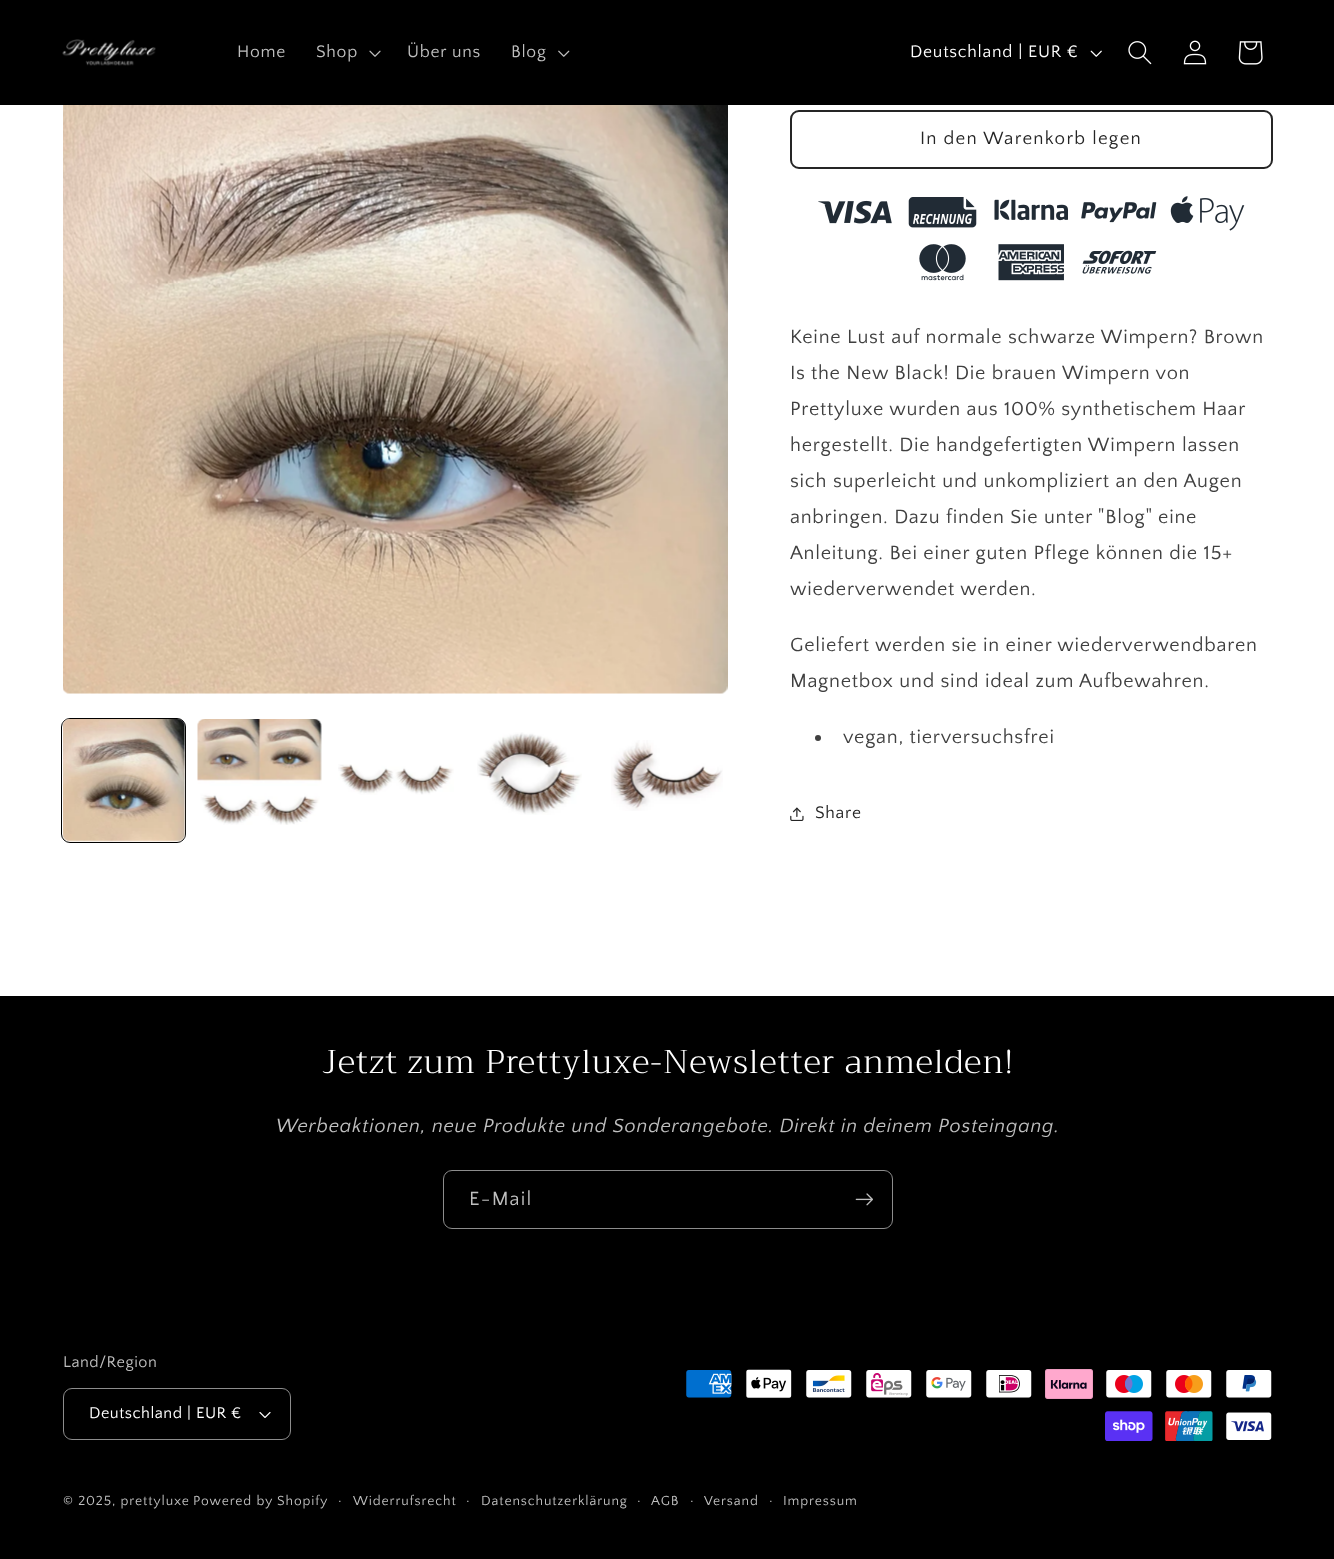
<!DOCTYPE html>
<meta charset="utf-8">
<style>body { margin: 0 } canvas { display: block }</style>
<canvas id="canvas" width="1334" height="1559"></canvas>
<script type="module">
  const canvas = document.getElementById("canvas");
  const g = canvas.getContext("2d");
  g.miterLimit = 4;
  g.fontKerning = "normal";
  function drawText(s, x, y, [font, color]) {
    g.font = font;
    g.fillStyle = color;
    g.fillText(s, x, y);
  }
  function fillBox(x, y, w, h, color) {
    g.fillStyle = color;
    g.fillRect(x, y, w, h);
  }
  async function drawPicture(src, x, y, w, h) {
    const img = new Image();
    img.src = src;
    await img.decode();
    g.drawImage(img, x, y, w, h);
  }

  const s1 = ["17.5px Quattrocento Sans", "#BFBFBF"];
  const s2 = ["17.5px Quattrocento Sans", "#FFFFFF"];
  const s3 = ["18.75px Quattrocento Sans", "#252525"];
  const s4 = ["20px Quattrocento Sans", "#404040"];
  const s5 = ["17.5px Quattrocento Sans", "#252525"];
  const s6 = ["300 33px Trirong", "#FFFFFF"];
  const s7 = ["italic 20px Quattrocento Sans", "#BFBFBF"];
  const s8 = ["20px Quattrocento Sans", "#BFBFBF"];
  const s9 = ["16.25px Quattrocento Sans", "#BFBFBF"];
  const s10 = ["16.25px Quattrocento Sans", "#FFFFFF"];
  const s11 = ["13.75px Quattrocento Sans", "#BFBFBF"];
  const s12 = ["15px Quattrocento Sans", "#BFBFBF"];

  fillBox(0, 0, 1334, 1559, "#FFFFFF");
  fillBox(0, 0, 1334, 105, "#000000");
  await drawPicture("pic1.png", 62, 39, 94, 27);
  g.letterSpacing = "0.75px";
  drawText("Home", 237, 57, s1);
  drawText("Shop", 316, 57, s1);
  await drawPicture("pic2.png", 369, 50, 12, 7);
  drawText("Über uns", 407, 57, s1);
  drawText("Blog", 511, 57, s1);
  await drawPicture("pic3.png", 558, 50, 12, 7);
  drawText("Deutschland | EUR €", 910, 57, s2);
  await drawPicture("pic4.png", 1090, 50, 12, 7);
  await drawPicture("pic5.png", 1128, 41, 24, 24);
  await drawPicture("pic6.png", 1183, 40, 24, 25);
  await drawPicture("pic7.png", 1238, 41, 25, 24);
  await drawPicture("pic8.png", 63, 105, 665, 589);
  g.beginPath();
  g.roundRect(61.5, 718.5, 124, 124, 8.5);
  g.strokeStyle = "#000000";
  g.stroke();
  await drawPicture("pic9.png", 63, 719, 123, 123);
  await drawPicture("pic10.png", 197, 719, 125, 106);
  await drawPicture("pic11.png", 338, 764, 116, 31);
  await drawPicture("pic12.png", 477, 732, 105, 83);
  await drawPicture("pic13.png", 611, 740, 112, 71);
  g.beginPath();
  g.roundRect(791, 111, 481, 57, 8);
  g.strokeStyle = "#252525";
  g.lineWidth = 2;
  g.stroke();
  g.letterSpacing = "1.25px";
  drawText("In den Warenkorb legen", 920, 144, s3);
  await drawPicture("pic14.png", 818, 200, 74, 24);
  await drawPicture("pic15.png", 908, 197, 69, 31);
  await drawPicture("pic16.png", 994, 199, 74, 22);
  await drawPicture("pic17.png", 1081, 202, 76, 21);
  await drawPicture("pic18.png", 1170, 196, 75, 35);
  await drawPicture("pic19.png", 919, 244, 47, 37);
  await drawPicture("pic20.png", 998, 244, 66, 37);
  await drawPicture("pic21.png", 1082, 250, 75, 24);
  g.letterSpacing = "0.75px";
  drawText("Keine Lust auf normale schwarze Wimpern? Brown", 790, 343, s4);
  drawText("Is the New Black! Die brauen Wimpern von", 790, 379, s4);
  drawText("Prettyluxe wurden aus 100% synthetischem Haar", 790, 415, s4);
  drawText("hergestellt. Die handgefertigten Wimpern lassen", 790, 451, s4);
  drawText("sich superleicht und unkompliziert an den Augen", 790, 487, s4);
  drawText("anbringen. Dazu finden Sie unter \"Blog\" eine", 790, 523, s4);
  drawText("Anleitung. Bei einer guten Pflege können die 15+", 790, 559, s4);
  drawText("wiederverwendet werden.", 790, 595, s4);
  drawText("Geliefert werden sie in einer wiederverwendbaren", 790, 651, s4);
  drawText("Magnetbox und sind ideal zum Aufbewahren.", 790, 687, s4);
  g.beginPath();
  g.arc(818, 738, 3, 0, Math.PI * 2);
  g.fill();
  drawText("vegan, tierversuchsfrei", 843, 743, s4);
  await drawPicture("pic22.png", 790, 807, 14, 14);
  drawText("Share", 815, 818, s5);
  fillBox(0, 996, 1334, 563, "#000000");
  g.letterSpacing = "0.85px";
  drawText("Jetzt zum Prettyluxe-Newsletter anmelden!", 322, 1073, s6);
  g.letterSpacing = "0.75px";
  drawText("Werbeaktionen, neue Produkte und Sonderangebote. Direkt in deinem Posteingang.", 276, 1132, s7);
  g.beginPath();
  g.roundRect(443.5, 1170.5, 449, 58, 8.5);
  g.strokeStyle = "#8C8C8C";
  g.lineWidth = 1;
  g.stroke();
  g.letterSpacing = "1.25px";
  drawText("E-Mail", 469, 1205, s8);
  await drawPicture("pic23.png", 855, 1193, 18, 13);
  g.letterSpacing = "0.5px";
  drawText("Land/Region", 63, 1367, s9);
  await drawPicture("pic24.png", 259, 1412, 12, 6);
  g.beginPath();
  g.roundRect(63.5, 1388.5, 227, 51, 8.5);
  g.stroke();
  drawText("Deutschland | EUR €", 89, 1418, s10);
  await drawPicture("pic25.png", 686, 1370, 46, 28);
  await drawPicture("pic26.png", 746, 1369, 46, 29);
  await drawPicture("pic27.png", 806, 1370, 46, 28);
  await drawPicture("pic28.png", 866, 1370, 46, 28);
  await drawPicture("pic29.png", 926, 1370, 46, 28);
  await drawPicture("pic30.png", 986, 1370, 46, 28);
  await drawPicture("pic31.png", 1045, 1369, 48, 30);
  await drawPicture("pic32.png", 1106, 1370, 46, 28);
  await drawPicture("pic33.png", 1166, 1370, 46, 28);
  await drawPicture("pic34.png", 1226, 1370, 46, 28);
  await drawPicture("pic35.png", 1105, 1411, 48, 30);
  await drawPicture("pic36.png", 1165, 1411, 48, 30);
  await drawPicture("pic37.png", 1226, 1412, 46, 28);
  g.letterSpacing = "0.9px";
  drawText("© 2025, prettyluxe", 63, 1505, s11);
  drawText("Powered by Shopify", 193, 1505, s11);
  drawText("·", 338, 1505, s12);
  drawText("Widerrufsrecht", 353, 1505, s11);
  drawText("·", 466, 1505, s12);
  drawText("Datenschutzerklärung", 481, 1505, s11);
  drawText("·", 637, 1505, s12);
  drawText("AGB", 651, 1505, s11);
  drawText("·", 690, 1505, s12);
  drawText("Versand", 704, 1505, s11);
  drawText("·", 769, 1505, s12);
  drawText("Impressum", 783, 1505, s11);
</script>
